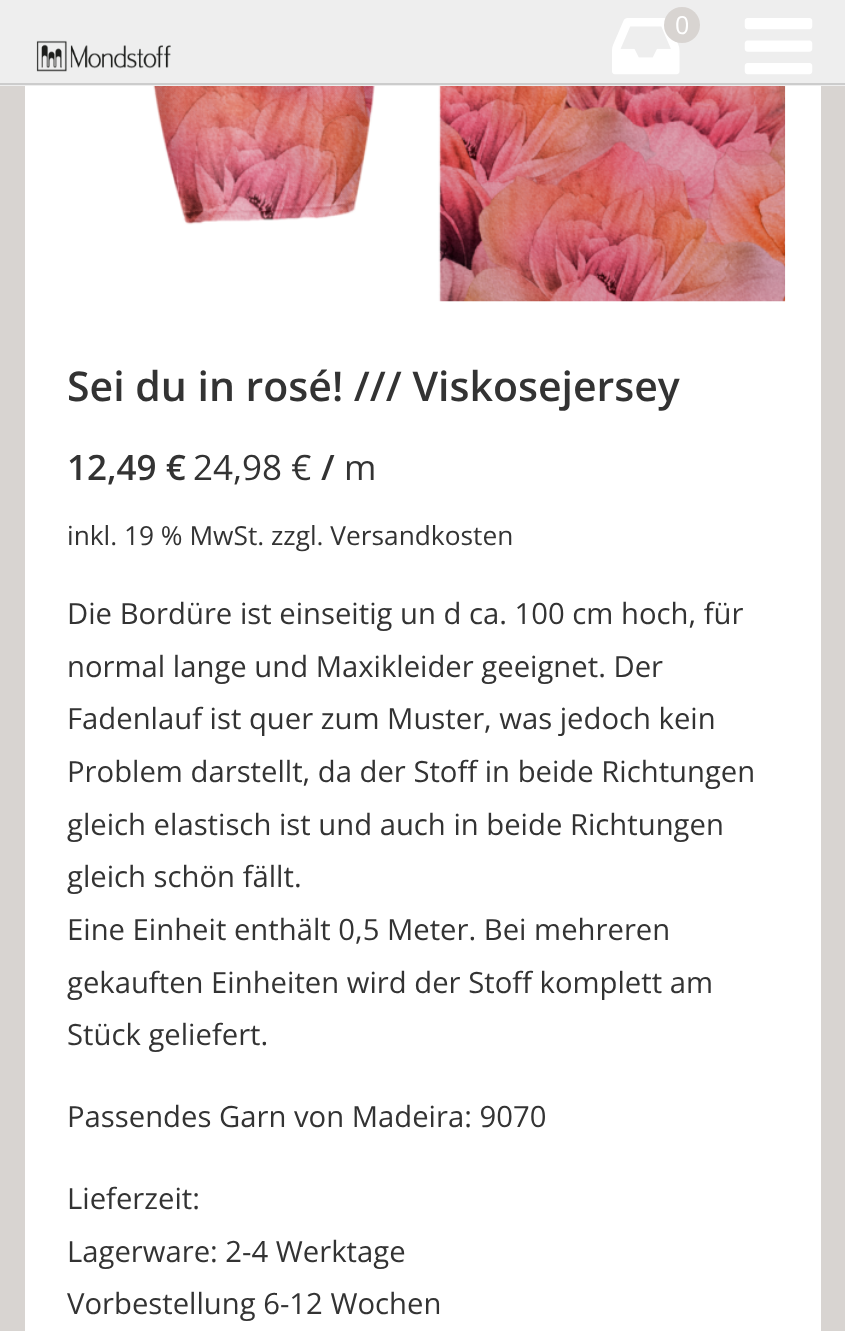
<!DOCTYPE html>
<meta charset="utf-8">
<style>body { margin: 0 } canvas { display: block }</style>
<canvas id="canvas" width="845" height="1331"></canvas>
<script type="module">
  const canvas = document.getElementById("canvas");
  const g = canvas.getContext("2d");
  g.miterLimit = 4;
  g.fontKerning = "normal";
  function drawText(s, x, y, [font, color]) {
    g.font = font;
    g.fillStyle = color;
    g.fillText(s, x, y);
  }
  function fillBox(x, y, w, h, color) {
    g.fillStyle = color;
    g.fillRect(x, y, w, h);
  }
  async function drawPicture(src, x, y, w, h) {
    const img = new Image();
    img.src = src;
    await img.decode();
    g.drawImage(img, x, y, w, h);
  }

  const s1 = ["25px Open Sans", "#FFFFFF"];
  const s2 = ["600 41px Open Sans", "#333333"];
  const s3 = ["600 35px Open Sans", "#333333"];
  const s4 = ["35px Open Sans", "#333333"];
  const s5 = ["26.3px Open Sans", "#333333"];
  const s6 = ["29.25px Open Sans", "#333333"];

  fillBox(0, 0, 845, 1331, "#D8D4D1");
  fillBox(0, 0, 845, 86, "#EEEEEE");
  fillBox(0, 83, 845, 2, "#CCCCCC");
  await drawPicture("pic1.png", 612, 18, 68, 57);
  g.fillStyle = "#D8D4D1";
  g.beginPath();
  g.arc(682, 25, 18, 0, Math.PI * 2);
  g.fill();
  drawText("0", 675, 34, s1);
  await drawPicture("pic2.png", 744, 18, 69, 57);
  await drawPicture("pic3.png", 36, 40, 135, 32);
  fillBox(25, 86, 796, 1245, "#FFFFFF");
  await drawPicture("pic4.png", 146, 86, 640, 216);
  drawText("Sei du in rosé! /// Viskosejersey", 67, 401, s2);
  drawText("12,49 €", 67, 480, s3);
  drawText("24,98 €", 193, 480, s4);
  drawText("/", 321, 480, s3);
  drawText("m", 344, 480, s4);
  drawText("inkl. 19 % MwSt. zzgl. Versandkosten", 67, 545, s5);
  drawText("Die Bordüre ist einseitig un d ca. 100 cm hoch, für", 67, 624, s6);
  drawText("normal lange und Maxikleider geeignet. Der", 67, 677, s6);
  drawText("Fadenlauf ist quer zum Muster, was jedoch kein", 67, 729, s6);
  drawText("Problem darstellt, da der Stoff in beide Richtungen", 67, 782, s6);
  drawText("gleich elastisch ist und auch in beide Richtungen", 67, 835, s6);
  drawText("gleich schön fällt.", 67, 887, s6);
  drawText("Eine Einheit enthält 0,5 Meter. Bei mehreren", 67, 940, s6);
  drawText("gekauften Einheiten wird der Stoff komplett am", 67, 993, s6);
  drawText("Stück geliefert.", 67, 1045, s6);
  drawText("Passendes Garn von Madeira: 9070", 67, 1127, s6);
  drawText("Lieferzeit:", 67, 1209, s6);
  drawText("Lagerware: 2-4 Werktage", 67, 1262, s6);
  drawText("Vorbestellung 6-12 Wochen", 67, 1314, s6);
</script>
